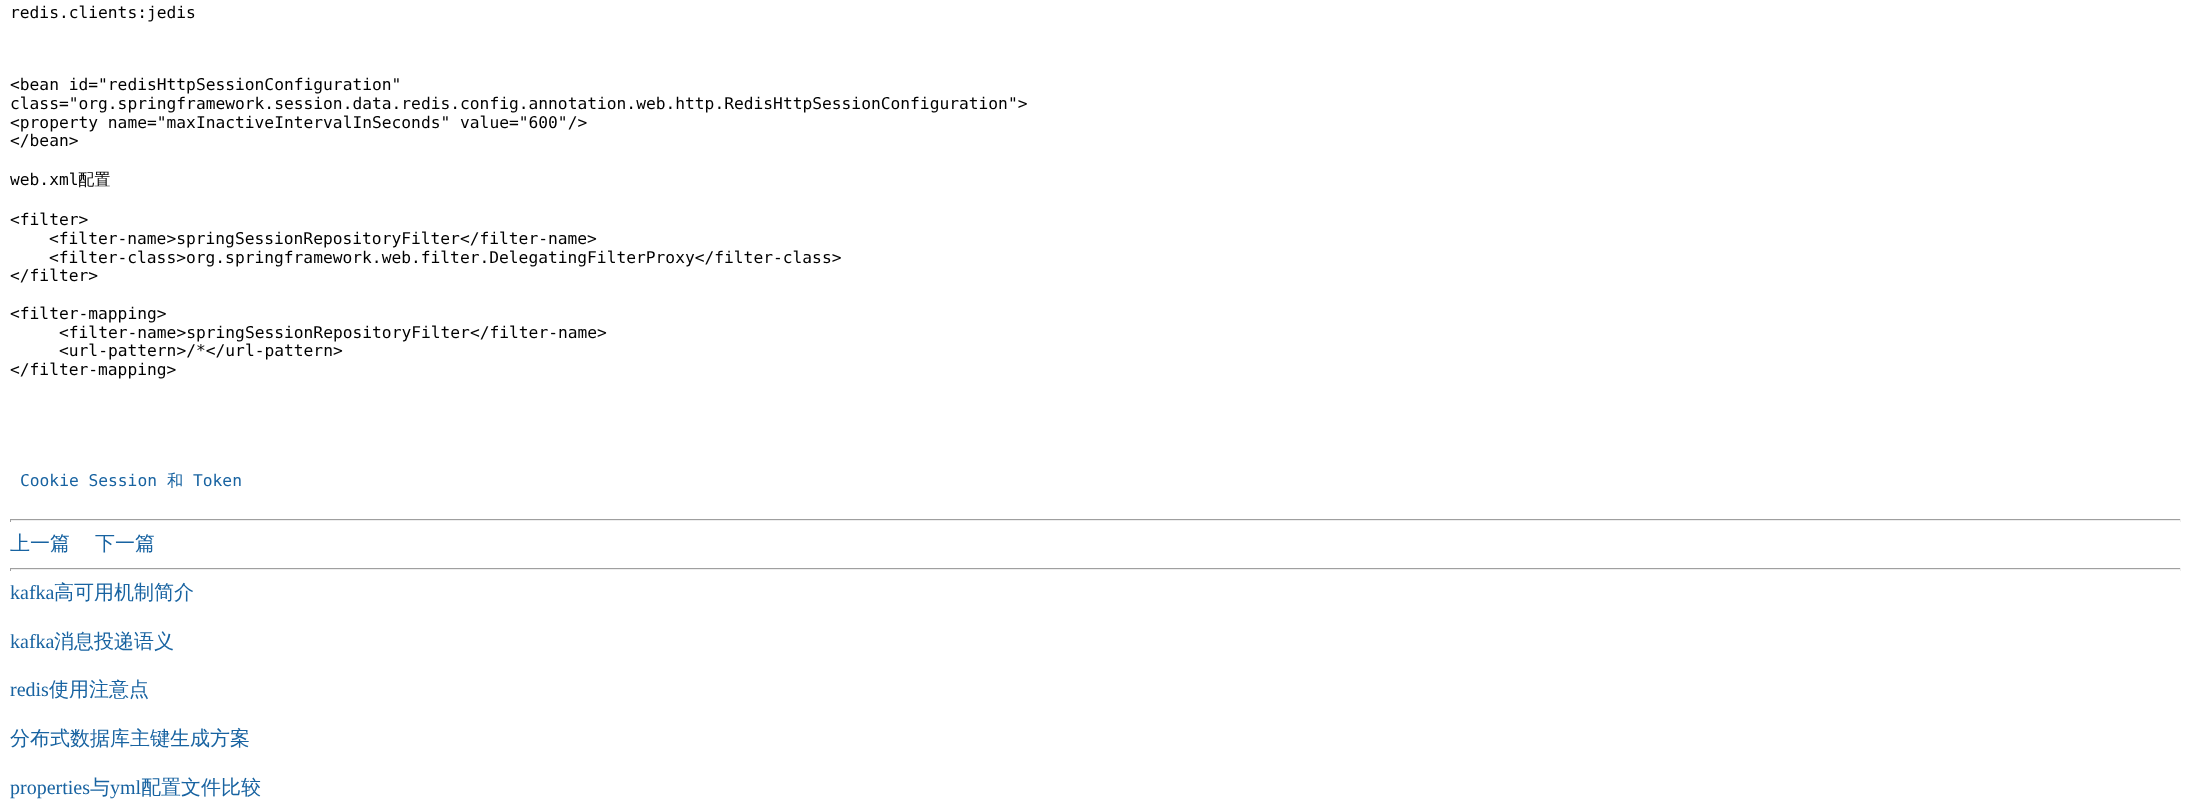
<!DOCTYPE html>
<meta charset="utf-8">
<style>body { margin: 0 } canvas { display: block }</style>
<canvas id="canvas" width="2191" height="799"></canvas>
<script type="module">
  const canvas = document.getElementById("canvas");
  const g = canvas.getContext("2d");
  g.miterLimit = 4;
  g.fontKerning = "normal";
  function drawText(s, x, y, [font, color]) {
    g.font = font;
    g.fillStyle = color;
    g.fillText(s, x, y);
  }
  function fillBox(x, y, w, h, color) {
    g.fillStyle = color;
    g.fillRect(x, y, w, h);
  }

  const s1 = ["16.25px DejaVu Sans Mono", "#000000"];
  const s2 = ["500 16.25px WenQuanYi Zen Hei", "#000000"];
  const s3 = ["16.25px DejaVu Sans Mono", "#1863A1"];
  const s4 = ["500 16.25px WenQuanYi Zen Hei", "#1863A1"];
  const s5 = ["500 20px WenQuanYi Zen Hei", "#1863A1"];
  const s6 = ["20px Liberation Serif", "#1863A1"];

  fillBox(0, 0, 2191, 799, "#FFFFFF");
  drawText("redis.clients:jedis", 10, 18, s1);
  drawText("<bean id=\"redisHttpSessionConfiguration\"", 10, 90, s1);
  drawText("class=\"org.springframework.session.data.redis.config.annotation.web.http.RedisHttpSessionConfiguration\">", 10, 109, s1);
  drawText("<property name=\"maxInactiveIntervalInSeconds\" value=\"600\"/>", 10, 128, s1);
  drawText("<\/bean>", 10, 146, s1);
  drawText("web.xml", 10, 185, s1);
  drawText("配置", 78, 185, s2);
  drawText("<filter>", 10, 225, s1);
  drawText("<filter-name>springSessionRepositoryFilter<\/filter-name>", 49, 244, s1);
  drawText("<filter-class>org.springframework.web.filter.DelegatingFilterProxy<\/filter-class>", 49, 263, s1);
  drawText("<\/filter>", 10, 281, s1);
  drawText("<filter-mapping>", 10, 319, s1);
  drawText("<filter-name>springSessionRepositoryFilter<\/filter-name>", 59, 338, s1);
  drawText("<url-pattern>/*<\/url-pattern>", 59, 356, s1);
  drawText("<\/filter-mapping>", 10, 375, s1);
  drawText("Cookie Session", 20, 486, s3);
  drawText("和", 167, 486, s4);
  drawText("Token", 193, 486, s3);
  fillBox(10, 519, 2171, 1, "#9F9F9F");
  fillBox(2180, 519, 1, 3, "#EEEEEE");
  fillBox(10, 520, 2171, 1, "#EEEEEE");
  fillBox(10, 519, 1, 3, "#9F9F9F");
  drawText("上一篇", 10, 550, s5);
  drawText("下一篇", 95, 550, s5);
  fillBox(10, 568, 2171, 1, "#9F9F9F");
  fillBox(2180, 568, 1, 3, "#EEEEEE");
  fillBox(10, 569, 2171, 1, "#EEEEEE");
  fillBox(10, 568, 1, 3, "#9F9F9F");
  drawText("kafka", 10, 599, s6);
  drawText("高可用机制简介", 54, 599, s5);
  drawText("kafka", 10, 648, s6);
  drawText("消息投递语义", 54, 648, s5);
  drawText("redis", 10, 696, s6);
  drawText("使用注意点", 49, 696, s5);
  drawText("分布式数据库主键生成方案", 10, 745, s5);
  drawText("properties", 10, 794, s6);
  drawText("与", 90, 794, s5);
  drawText("yml", 110, 794, s6);
  drawText("配置文件比较", 141, 794, s5);
</script>
